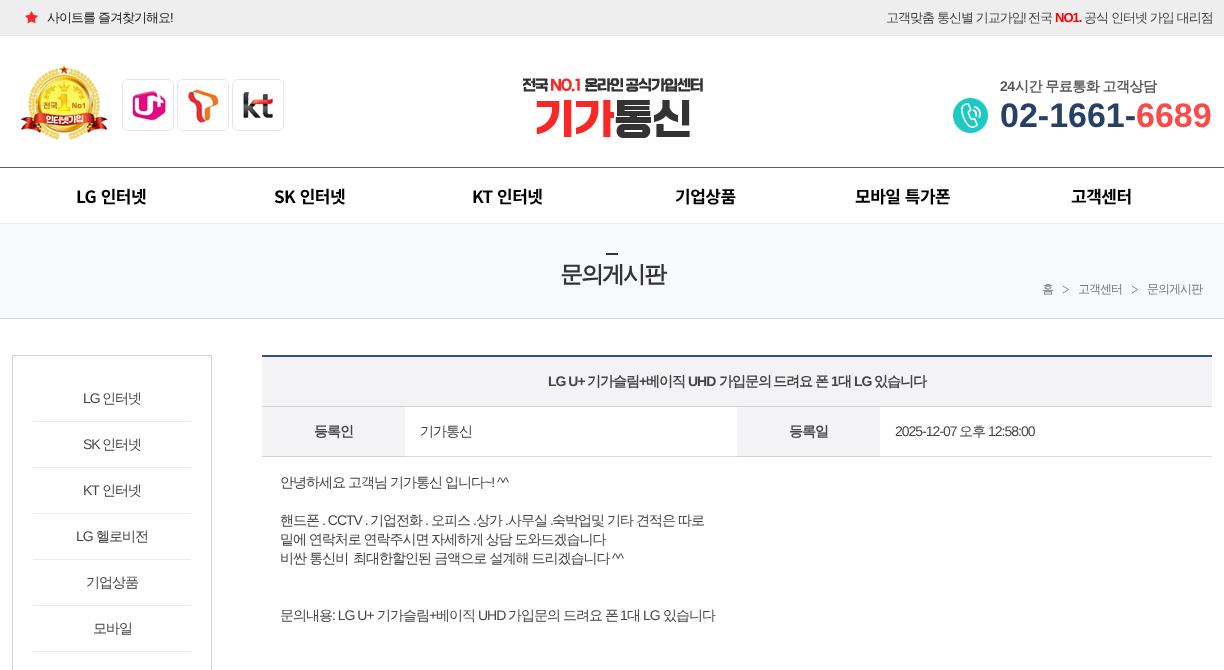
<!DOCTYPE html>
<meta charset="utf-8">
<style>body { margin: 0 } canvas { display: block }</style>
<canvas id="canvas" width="1224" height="670"></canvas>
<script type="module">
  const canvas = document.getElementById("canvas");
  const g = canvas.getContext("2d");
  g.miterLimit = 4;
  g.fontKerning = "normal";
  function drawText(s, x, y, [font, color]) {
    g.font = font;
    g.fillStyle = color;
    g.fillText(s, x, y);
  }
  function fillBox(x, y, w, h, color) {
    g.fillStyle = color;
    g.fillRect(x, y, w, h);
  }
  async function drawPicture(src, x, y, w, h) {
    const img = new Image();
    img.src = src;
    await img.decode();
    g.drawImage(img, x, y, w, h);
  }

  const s1 = ["500 13px WenQuanYi Zen Hei", "#222222"];
  const s2 = ["13px Liberation Sans", "#222222"];
  const s3 = ["500 13px WenQuanYi Zen Hei", "#444444"];
  const s4 = ["13px Liberation Sans", "#444444"];
  const s5 = ["bold 13px Liberation Sans", "#FD0000"];
  const s6 = ["bold 14px Liberation Sans", "#585858"];
  const s7 = ["bold 14px WenQuanYi Zen Hei", "#585858"];
  const s8 = ["bold 34px Liberation Sans", "#284065"];
  const s9 = ["bold 34px Liberation Sans", "#FB4B49"];
  const s10 = ["bold 17px Noto Sans KR", "#000000"];
  const s11 = ["bold 23px WenQuanYi Zen Hei", "#333333"];
  const s12 = ["500 12px WenQuanYi Zen Hei", "#777777"];
  const s13 = ["14px Liberation Sans", "#444444"];
  const s14 = ["500 14px WenQuanYi Zen Hei", "#444444"];
  const s15 = ["bold 14px Liberation Sans", "#444444"];
  const s16 = ["bold 14px WenQuanYi Zen Hei", "#444444"];

  fillBox(0, 0, 1224, 670, "#FFFFFF");
  fillBox(0, 0, 1224, 35, "#EEEEEE");
  fillBox(0, 35, 1224, 1, "#E6E6E6");
  await drawPicture("pic1.png", 25, 11, 13, 13);
  g.letterSpacing = "-1px";
  drawText("사이트를 즐겨찾기해요", 47, 22, s1);
  drawText("!", 170, 22, s2);
  drawText("고객맞춤 통신별 기교가입", 886, 22, s3);
  drawText("!", 1023, 22, s4);
  drawText("전국", 1028, 22, s3);
  drawText("NO1.", 1055, 22, s5);
  drawText("공식 인터넷 가입 대리점", 1084, 22, s3);
  await drawPicture("pic2.png", 20, 64, 88, 76);
  await drawPicture("pic3.png", 122, 79, 162, 52);
  await drawPicture("pic4.png", 523, 78, 180, 60);
  await drawPicture("pic5.png", 953, 98, 35, 35);
  g.letterSpacing = "-0.5px";
  drawText("24", 1000, 91, s6);
  g.wordSpacing = "-0.5px";
  drawText("시간 무료통화 고객상담", 1015, 91, s7);
  g.letterSpacing = "0px";
  g.wordSpacing = "0px";
  drawText("02-1661-", 1000, 127, s8);
  drawText("6689", 1136, 127, s9);
  fillBox(0, 167, 1224, 1, "#5F5F5F");
  g.letterSpacing = "-0.5px";
  g.wordSpacing = "1px";
  drawText("LG 인터넷", 76, 203, s10);
  drawText("SK 인터넷", 274, 203, s10);
  drawText("KT 인터넷", 472, 203, s10);
  g.wordSpacing = "0px";
  drawText("기업상품", 675, 203, s10);
  g.wordSpacing = "1px";
  drawText("모바일 특가폰", 855, 203, s10);
  g.wordSpacing = "0px";
  drawText("고객센터", 1071, 203, s10);
  fillBox(0, 224, 1224, 94, "#F8F9FA");
  fillBox(0, 223, 1224, 1, "#E9E9E9");
  fillBox(0, 318, 1224, 1, "#D4D4D4");
  fillBox(606, 253, 12, 2, "#333333");
  g.letterSpacing = "-2px";
  drawText("문의게시판", 560, 282, s11);
  g.letterSpacing = "-1px";
  drawText("홈", 1042, 293, s12);
  await drawPicture("pic6.png", 1053, 285, 17, 9);
  drawText("고객센터", 1078, 293, s12);
  await drawPicture("pic7.png", 1131, 285, 8, 9);
  drawText("문의게시판", 1147, 293, s12);
  g.strokeStyle = "#D4D4D4";
  g.strokeRect(12.5, 355.5, 199, 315);
  fillBox(33, 421, 158, 1, "#EAEAEA");
  drawText("LG", 83, 403, s13);
  drawText("인터넷", 102, 403, s14);
  fillBox(33, 467, 158, 1, "#EAEAEA");
  drawText("SK", 83, 449, s13);
  drawText("인터넷", 102, 449, s14);
  fillBox(33, 513, 158, 1, "#EAEAEA");
  drawText("KT", 83, 495, s13);
  drawText("인터넷", 102, 495, s14);
  fillBox(33, 559, 158, 1, "#EAEAEA");
  drawText("LG", 76, 541, s13);
  drawText("헬로비전", 96, 541, s14);
  fillBox(33, 605, 158, 1, "#EAEAEA");
  drawText("기업상품", 86, 587, s14);
  fillBox(33, 651, 158, 1, "#EAEAEA");
  drawText("모바일", 93, 633, s14);
  fillBox(262, 355, 950, 2, "#30517C");
  fillBox(262, 357, 950, 49, "#F3F3F6");
  fillBox(262, 406, 950, 1, "#D2D2D6");
  drawText("LG U+", 548, 386, s15);
  drawText("기가슬림", 587, 386, s16);
  drawText("+", 639, 386, s15);
  drawText("베이직", 646, 386, s16);
  drawText("UHD", 688, 386, s15);
  drawText("가입문의", 719, 386, s16);
  drawText("드려요", 773, 386, s16);
  drawText("폰", 815, 386, s16);
  drawText("1", 831, 386, s15);
  drawText("대", 838, 386, s16);
  drawText("LG", 854, 386, s15);
  drawText("있습니다", 874, 386, s16);
  fillBox(262, 407, 143, 49, "#F3F3F6");
  fillBox(262, 456, 143, 1, "#D2D2D6");
  drawText("등록인", 314, 436, s16);
  fillBox(405, 456, 332, 1, "#DADADA");
  drawText("기가통신", 420, 436, s14);
  fillBox(737, 407, 143, 49, "#F3F3F6");
  fillBox(737, 456, 143, 1, "#D2D2D6");
  drawText("등록일", 789, 436, s16);
  fillBox(880, 456, 332, 1, "#DADADA");
  drawText("2025-12-07", 895, 436, s13);
  drawText("오후", 959, 436, s14);
  drawText("12:58:00", 988, 436, s13);
  drawText("안녕하세요", 280, 487, s14);
  drawText("고객님", 348, 487, s14);
  drawText("기가통신", 390, 487, s14);
  drawText("입니다", 445, 487, s14);
  drawText("~! ^^", 484, 487, s13);
  drawText("핸드폰", 280, 525, s14);
  drawText(". CCTV .", 322, 525, s13);
  drawText("기업전화", 370, 525, s14);
  drawText(".", 425, 525, s13);
  drawText("오피스", 431, 525, s14);
  drawText(".", 473, 525, s13);
  drawText("상가", 476, 525, s14);
  drawText(".", 505, 525, s13);
  drawText("사무실", 508, 525, s14);
  drawText(".", 550, 525, s13);
  drawText("숙박업및", 552, 525, s14);
  drawText("기타", 607, 525, s14);
  drawText("견적은", 636, 525, s14);
  drawText("따로", 678, 525, s14);
  g.wordSpacing = "-0.5px";
  drawText("밑에 연락처로 연락주시면 자세하게 상담 도와드겠습니다", 280, 544, s14);
  g.wordSpacing = "0px";
  drawText("비싼 통신비", 280, 563, s14);
  drawText("최대한할인된 금액으로 설계해 드리겠습니다", 353, 563, s14);
  drawText("^^", 612, 563, s13);
  drawText("문의내용", 280, 620, s14);
  drawText(": LG U+", 332, 620, s13);
  drawText("기가슬림", 377, 620, s14);
  drawText("+", 429, 620, s13);
  drawText("베이직", 436, 620, s14);
  drawText("UHD", 478, 620, s13);
  drawText("가입문의", 508, 620, s14);
  drawText("드려요", 563, 620, s14);
  drawText("폰", 605, 620, s14);
  drawText("1", 620, 620, s13);
  drawText("대", 627, 620, s14);
  drawText("LG", 643, 620, s13);
  drawText("있습니다", 663, 620, s14);
</script>
